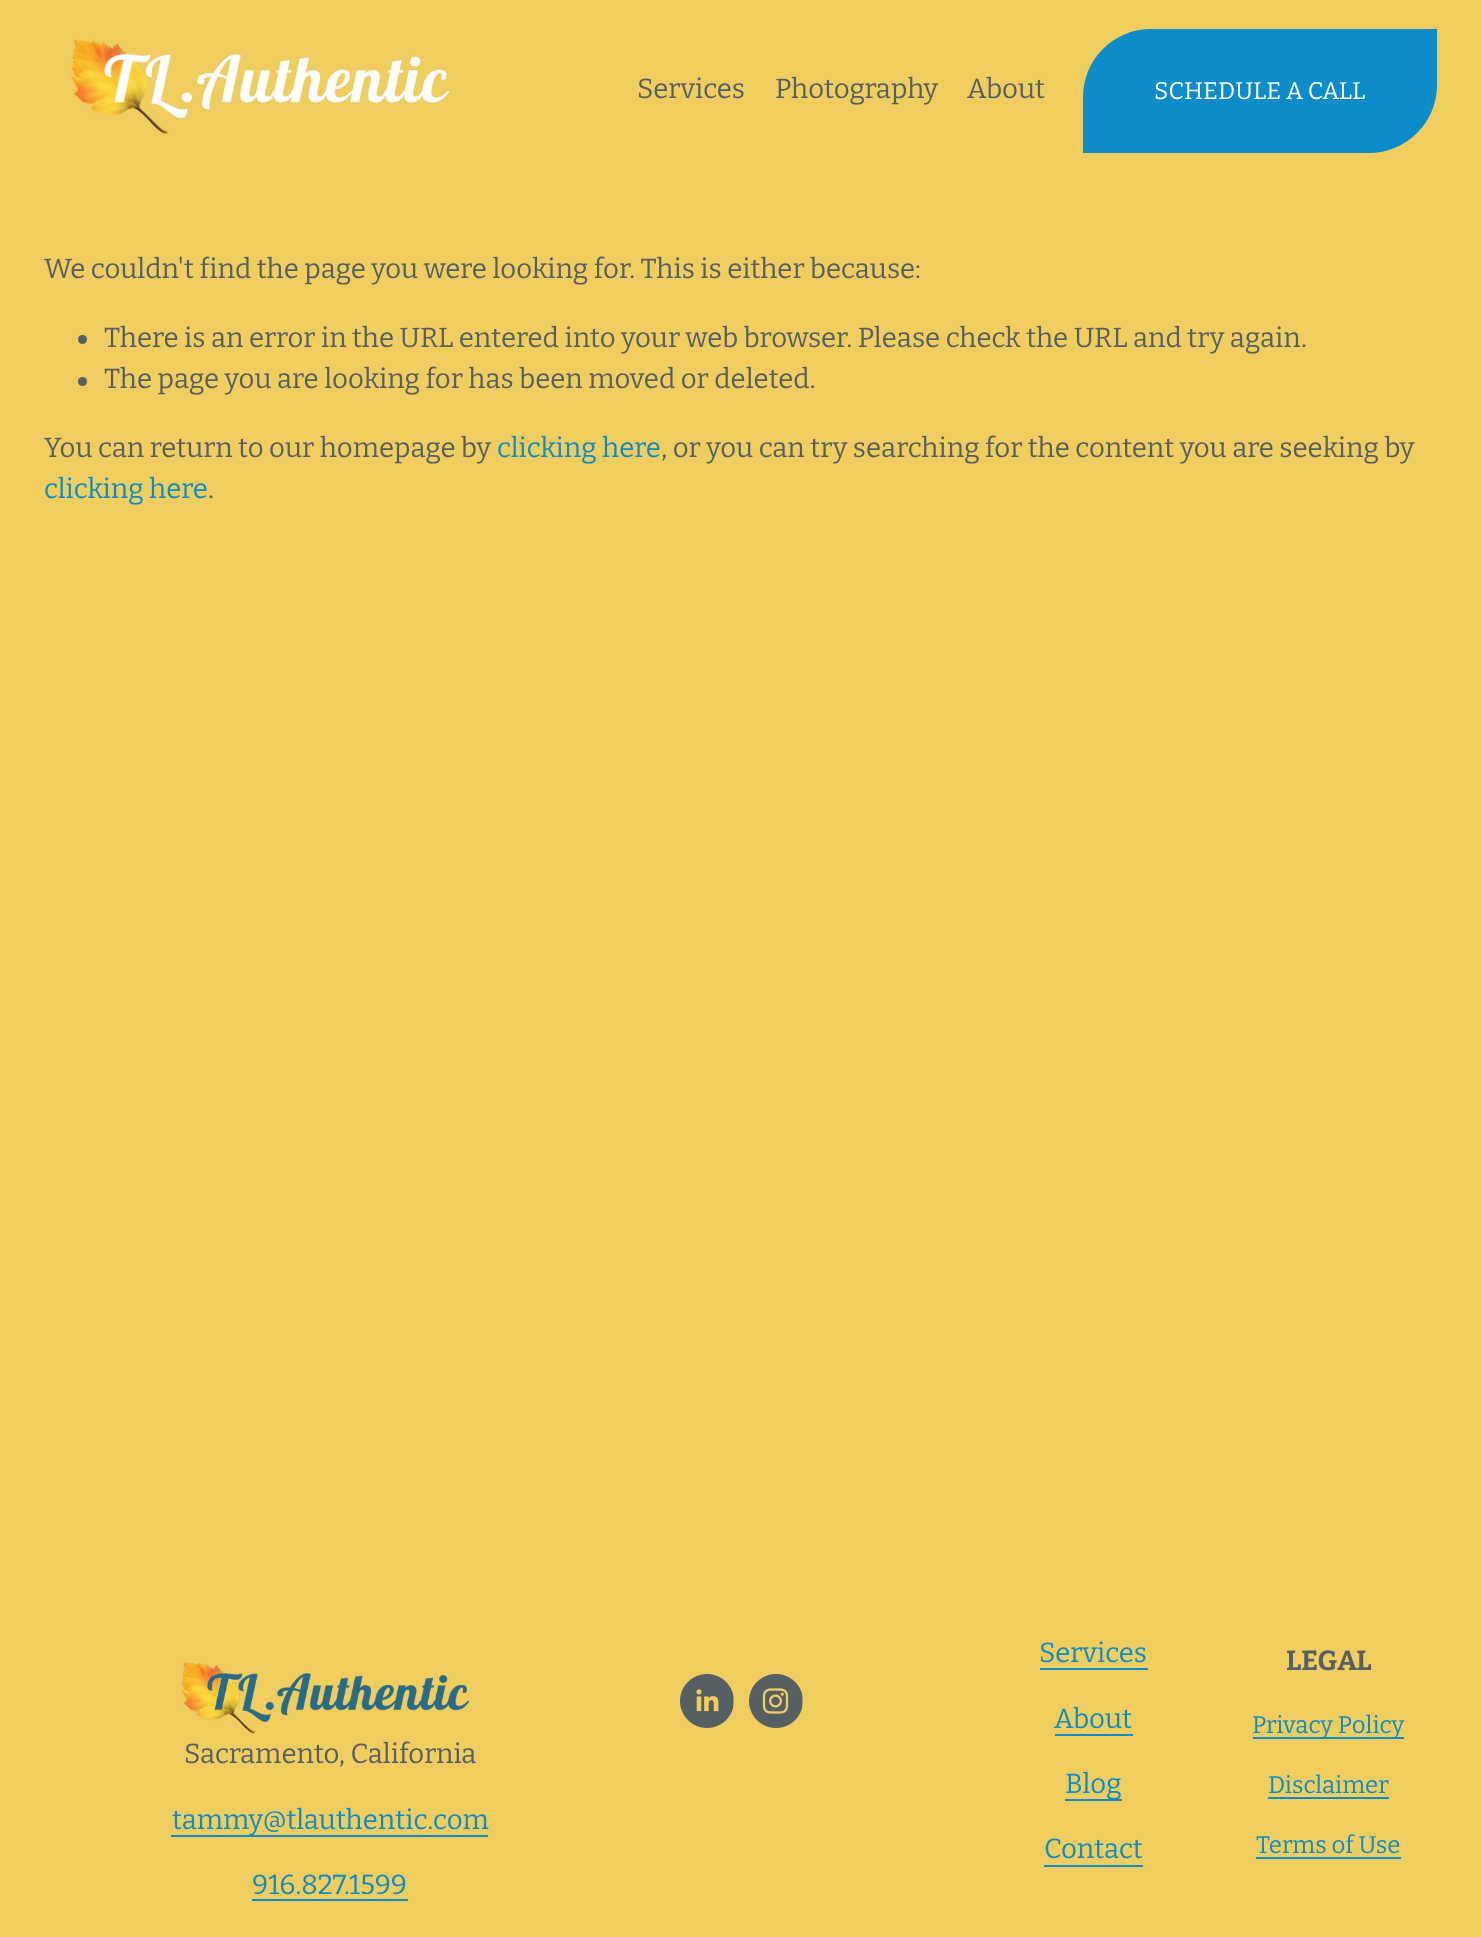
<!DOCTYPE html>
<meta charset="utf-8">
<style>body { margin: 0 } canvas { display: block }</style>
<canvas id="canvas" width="1481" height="1937"></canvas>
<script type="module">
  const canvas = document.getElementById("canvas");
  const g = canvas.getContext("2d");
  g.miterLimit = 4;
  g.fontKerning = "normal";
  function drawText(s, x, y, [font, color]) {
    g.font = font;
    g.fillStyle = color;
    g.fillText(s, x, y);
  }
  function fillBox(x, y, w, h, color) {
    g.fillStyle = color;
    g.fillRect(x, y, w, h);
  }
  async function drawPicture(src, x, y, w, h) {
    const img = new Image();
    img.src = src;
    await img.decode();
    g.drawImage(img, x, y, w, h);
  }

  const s1 = ["27.55px Bitter", "#566063"];
  const s2 = ["24px Bitter", "#FFFFFF"];
  const s3 = ["27.55px Bitter", "#0C8CC8"];
  const s4 = ["bold 27.55px Bitter", "#566063"];
  const s5 = ["24px Bitter", "#0C8CC8"];

  fillBox(0, 0, 1481, 1937, "#F0CD5F");
  await drawPicture("pic1.png", 70, 39, 380, 95);
  drawText("Services", 637, 98, s1);
  drawText("Photography", 775, 98, s1);
  drawText("About", 967, 98, s1);
  g.fillStyle = "#0C8CC8";
  g.beginPath();
  g.roundRect(1083, 29, 354, 124, [68, 0, 68, 0]);
  g.fill();
  drawText("SCHEDULE A CALL", 1154, 99, s2);
  drawText("We couldn't find the page you were looking for. This is either because:", 44, 278, s1);
  g.beginPath();
  g.arc(82.5, 339.5, 4.5, 0, Math.PI * 2);
  g.fill();
  drawText("There is an error in the URL entered into your web browser. Please check the URL and try again.", 104, 347, s1);
  g.beginPath();
  g.arc(82.5, 381.5, 4.5, 0, Math.PI * 2);
  g.fill();
  drawText("The page you are looking for has been moved or deleted.", 104, 388, s1);
  drawText("You can return to our homepage by", 44, 457, s1);
  drawText("clicking here", 497, 457, s3);
  drawText(", or you can try searching for the content you are seeking by", 661, 457, s1);
  drawText("clicking here", 44, 498, s3);
  drawText(".", 208, 498, s1);
  await drawPicture("pic2.png", 181, 1662, 289, 72);
  await drawPicture("pic3.png", 680, 1674, 54, 54);
  await drawPicture("pic4.png", 749, 1674, 54, 54);
  drawText("Services", 1039, 1662, s3);
  fillBox(1040, 1668, 108, 2, "#0C8CC8");
  drawText("About", 1054, 1728, s3);
  fillBox(1055, 1734, 78, 2, "#0C8CC8");
  fillBox(1065, 1799, 57, 2, "#0C8CC8");
  drawText("Blog", 1065, 1793, s3);
  drawText("Contact", 1044, 1858, s3);
  fillBox(1044, 1865, 99, 2, "#0C8CC8");
  drawText("LEGAL", 1286, 1670, s4);
  fillBox(1253, 1737, 151, 2, "#0C8CC8");
  drawText("Privacy Policy", 1252, 1733, s5);
  drawText("Disclaimer", 1268, 1793, s5);
  fillBox(1268, 1797, 121, 2, "#0C8CC8");
  drawText("Terms of Use", 1256, 1853, s5);
  fillBox(1256, 1857, 145, 2, "#0C8CC8");
  drawText("Sacramento, California", 184, 1763, s1);
  fillBox(171, 1835, 317, 2, "#0C8CC8");
  drawText("tammy@tlauthentic.com", 172, 1829, s3);
  drawText("916.827.1599", 252, 1894, s3);
  fillBox(252, 1899, 156, 2, "#0C8CC8");
</script>
